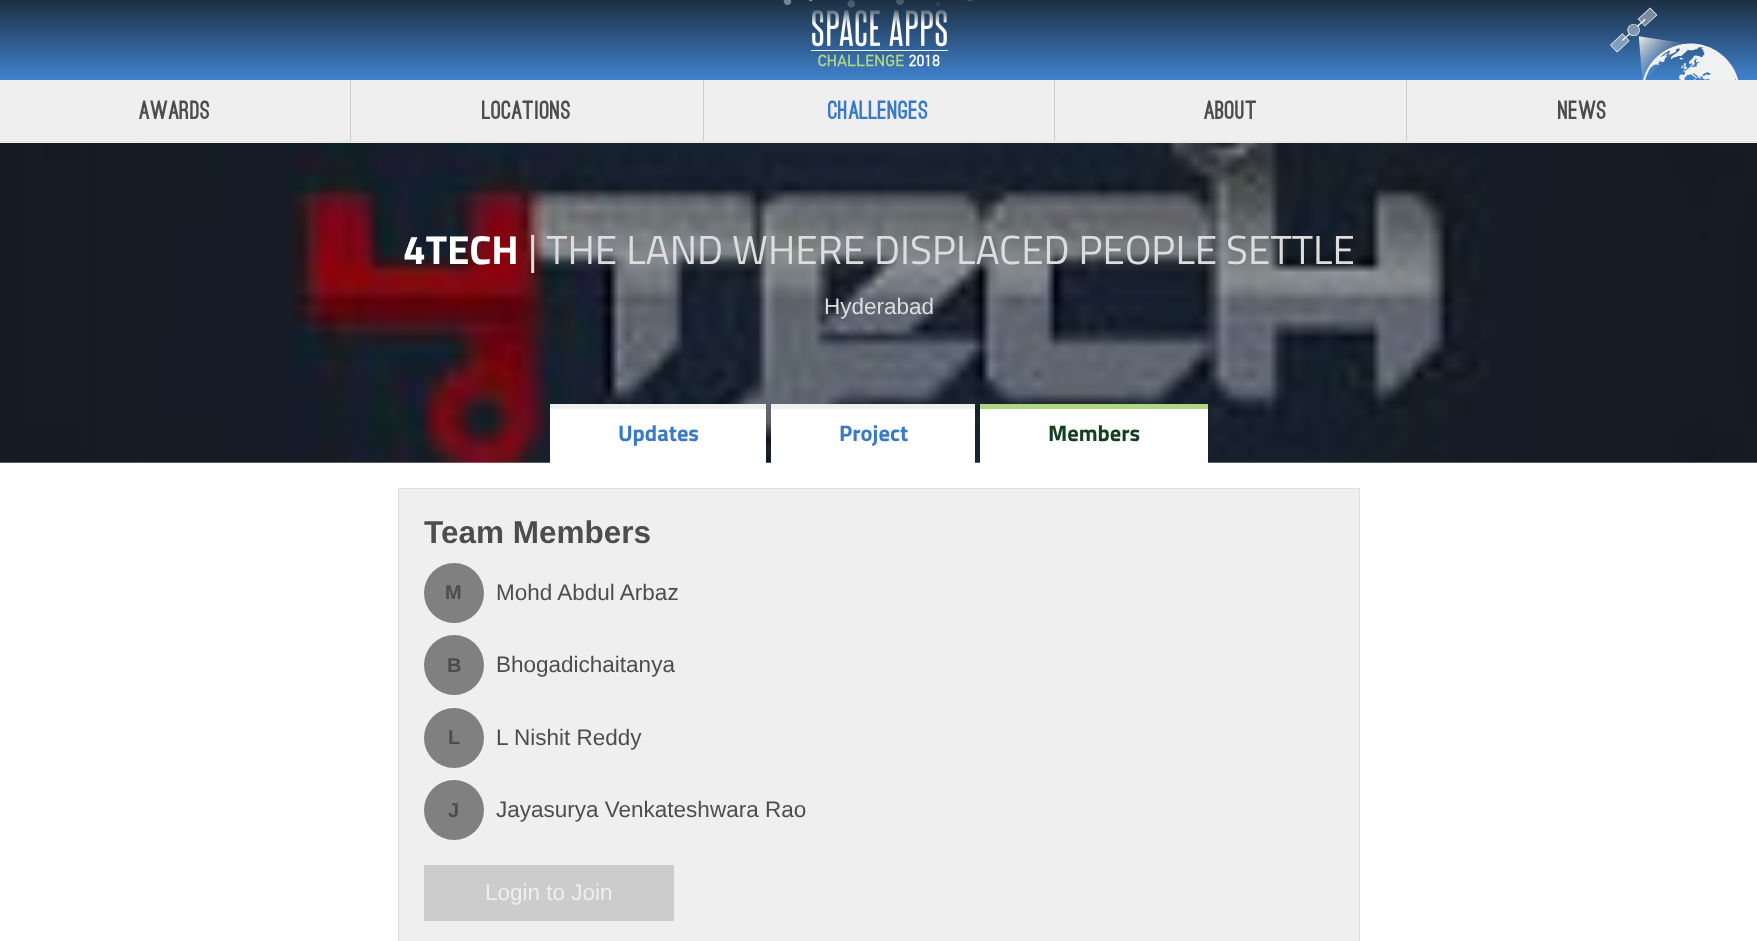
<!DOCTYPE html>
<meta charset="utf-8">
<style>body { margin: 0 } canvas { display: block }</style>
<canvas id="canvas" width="1757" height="941"></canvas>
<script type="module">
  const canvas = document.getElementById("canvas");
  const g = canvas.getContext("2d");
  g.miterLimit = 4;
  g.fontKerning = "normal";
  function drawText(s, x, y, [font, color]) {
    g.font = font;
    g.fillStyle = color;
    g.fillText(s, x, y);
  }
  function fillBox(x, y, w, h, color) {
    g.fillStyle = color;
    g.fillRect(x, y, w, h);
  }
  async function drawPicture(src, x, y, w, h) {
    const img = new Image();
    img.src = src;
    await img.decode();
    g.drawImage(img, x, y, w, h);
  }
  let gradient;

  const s1 = ["900 25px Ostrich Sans", "#4D4D4D"];
  const s2 = ["900 25px Ostrich Sans", "#3979C5"];
  const s3 = ["bold 40.5px Titillium Web", "#FFFFFF"];
  const s4 = ["40.5px Titillium Web", "#DDDDDD"];
  const s5 = ["22.5px Liberation Sans", "#DDDDDD"];
  const s6 = ["bold 22.5px Titillium Web", "#3979C5"];
  const s7 = ["bold 22.5px Titillium Web", "#134020"];
  const s8 = ["bold 31.5px Liberation Sans", "#4D4D4D"];
  const s9 = ["bold 20px Liberation Sans", "#4D4D4D"];
  const s10 = ["22.5px Liberation Sans", "#4D4D4D"];
  const s11 = ["22.5px Liberation Sans", "#EFEFEF"];

  fillBox(0, 0, 1757, 941, "#FFFFFF");
  fillBox(0, 462, 1757, 1, "#999999");
  fillBox(0, 80, 1757, 63, "#EFEFEF");
  fillBox(0, 141, 1757, 1, "#E3E3E3");
  gradient = g.createLinearGradient(879, 80, 879, 0);
  gradient.addColorStop(0, "#4082CD");
  gradient.addColorStop(1, "#1C2F43");
  g.fillStyle = gradient;
  g.fillRect(0, 0, 1757, 80);
  await drawPicture("pic1.png", 783, 0, 190, 8);
  await drawPicture("pic2.png", 811, 10, 137, 57);
  await drawPicture("pic3.png", 1610, 7, 129, 73);
  g.letterSpacing = "0.25px";
  drawText("Awards", 139, 119, s1);
  fillBox(350, 80, 1, 61, "#CCCCCC");
  drawText("Locations", 482, 119, s1);
  fillBox(703, 80, 1, 61, "#CCCCCC");
  drawText("Challenges", 828, 119, s2);
  fillBox(1054, 80, 1, 61, "#CCCCCC");
  drawText("About", 1204, 119, s1);
  fillBox(1406, 80, 1, 61, "#CCCCCC");
  drawText("News", 1558, 119, s1);
  await drawPicture("pic4.png", 0, 143, 1757, 320);
  g.letterSpacing = "0px";
  drawText("4TECH", 403, 264, s3);
  drawText("| THE LAND WHERE DISPLACED PEOPLE SETTLE", 528, 264, s4);
  drawText("Hyderabad", 824, 314, s5);
  fillBox(550, 409, 216, 54, "#FFFFFF");
  fillBox(550, 404, 216, 5, "#EFEFEF");
  drawText("Updates", 618, 441, s6);
  fillBox(771, 409, 204, 54, "#FFFFFF");
  fillBox(771, 404, 204, 5, "#EFEFEF");
  drawText("Project", 839, 441, s6);
  fillBox(980, 409, 228, 54, "#FFFFFF");
  fillBox(980, 404, 228, 5, "#B0D681");
  drawText("Members", 1048, 441, s7);
  g.fillStyle = "#EFEFEF";
  g.beginPath();
  g.rect(398.5, 488.5, 961, 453);
  g.fill();
  g.strokeStyle = "#DDDDDD";
  g.stroke();
  drawText("Team Members", 424, 543, s8);
  g.fillStyle = "#808080";
  g.beginPath();
  g.arc(454, 593, 30, 0, Math.PI * 2);
  g.fill();
  drawText("M", 445, 599, s9);
  drawText("Mohd Abdul Arbaz", 496, 600, s10);
  g.fillStyle = "#808080";
  g.beginPath();
  g.arc(454, 665, 30, 0, Math.PI * 2);
  g.fill();
  drawText("B", 447, 672, s9);
  drawText("Bhogadichaitanya", 496, 672, s10);
  g.fillStyle = "#808080";
  g.beginPath();
  g.arc(454, 738, 30, 0, Math.PI * 2);
  g.fill();
  drawText("L", 448, 744, s9);
  drawText("L Nishit Reddy", 496, 745, s10);
  g.fillStyle = "#808080";
  g.beginPath();
  g.arc(454, 810, 30, 0, Math.PI * 2);
  g.fill();
  drawText("J", 448, 817, s9);
  drawText("Jayasurya Venkateshwara Rao", 496, 817, s10);
  fillBox(424, 865, 250, 56, "#CCCCCC");
  drawText("Login to Join", 485, 900, s11);
</script>
